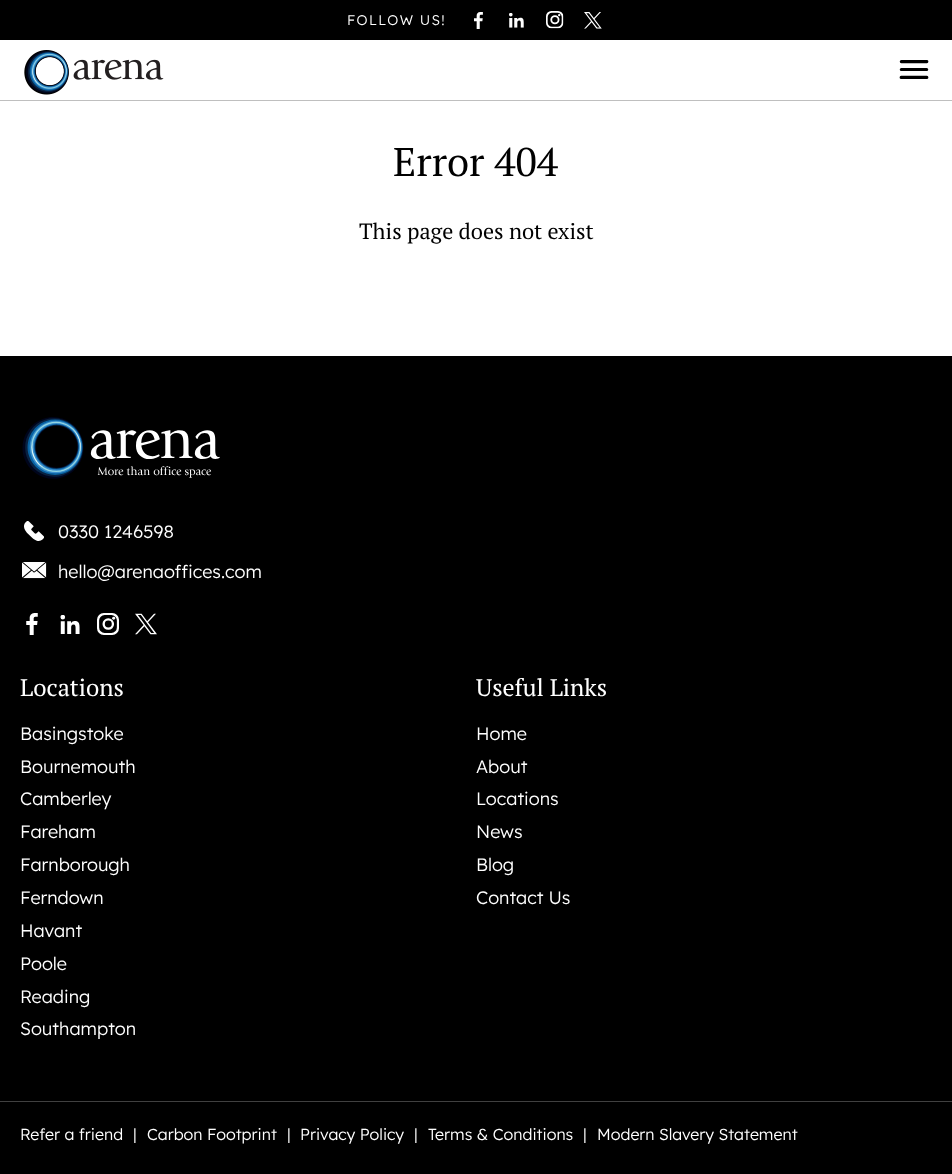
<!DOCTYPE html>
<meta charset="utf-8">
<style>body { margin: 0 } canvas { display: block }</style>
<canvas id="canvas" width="952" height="1174"></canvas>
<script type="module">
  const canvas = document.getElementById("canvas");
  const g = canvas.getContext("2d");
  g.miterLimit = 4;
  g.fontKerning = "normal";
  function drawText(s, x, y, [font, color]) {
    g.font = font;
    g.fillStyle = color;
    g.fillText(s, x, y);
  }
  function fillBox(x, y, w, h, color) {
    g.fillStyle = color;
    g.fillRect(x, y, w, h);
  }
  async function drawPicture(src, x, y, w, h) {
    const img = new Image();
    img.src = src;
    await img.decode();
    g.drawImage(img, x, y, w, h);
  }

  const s1 = ["300 14px Lexend", "#FFFFFF"];
  const s2 = ["40px PT Serif", "#000000"];
  const s3 = ["22px PT Serif", "#000000"];
  const s4 = ["300 18px Lexend", "#FFFFFF"];
  const s5 = ["24px PT Serif", "#FFFFFF"];
  const s6 = ["300 16px Lexend", "#FFFFFF"];

  fillBox(0, 0, 952, 1174, "#FFFFFF");
  fillBox(0, 100, 952, 1, "#BFBFBF");
  fillBox(0, 0, 952, 40, "#000000");
  g.letterSpacing = "1.4px";
  drawText("FOLLOW US!", 347, 25, s1);
  await drawPicture("pic1.png", 474, 12, 9, 17);
  await drawPicture("pic2.png", 509, 13, 15, 15);
  await drawPicture("pic3.png", 546, 11, 18, 18);
  await drawPicture("pic4.png", 584, 12, 18, 17);
  await drawPicture("pic5.png", 24, 50, 140, 45);
  await drawPicture("pic6.png", 899, 60, 30, 19);
  g.letterSpacing = "0px";
  drawText("Error 404", 393, 176, s2);
  drawText("This page does not exist", 359, 239, s3);
  fillBox(0, 356, 952, 818, "#000000");
  await drawPicture("pic7.png", 22, 417, 198, 62);
  await drawPicture("pic8.png", 24, 521, 20, 20);
  drawText("0330 1246598", 58, 538, s4);
  await drawPicture("pic9.png", 22, 562, 25, 17);
  drawText("hello@arenaoffices.com", 58, 578, s4);
  await drawPicture("pic10.png", 26, 613, 12, 22);
  await drawPicture("pic11.png", 60, 615, 20, 19);
  await drawPicture("pic12.png", 97, 613, 22, 22);
  await drawPicture("pic13.png", 135, 613, 22, 22);
  drawText("Locations", 20, 696, s5);
  drawText("Basingstoke", 20, 740, s4);
  drawText("Bournemouth", 20, 773, s4);
  drawText("Camberley", 20, 805, s4);
  drawText("Fareham", 20, 838, s4);
  drawText("Farnborough", 20, 871, s4);
  drawText("Ferndown", 20, 904, s4);
  drawText("Havant", 20, 937, s4);
  drawText("Poole", 20, 970, s4);
  drawText("Reading", 20, 1003, s4);
  drawText("Southampton", 20, 1035, s4);
  drawText("Useful Links", 476, 696, s5);
  drawText("Home", 476, 740, s4);
  drawText("About", 476, 773, s4);
  drawText("Locations", 476, 805, s4);
  drawText("News", 476, 838, s4);
  drawText("Blog", 476, 871, s4);
  drawText("Contact Us", 476, 904, s4);
  fillBox(0, 1101, 952, 1, "#404040");
  drawText("Refer a friend", 20, 1140, s6);
  drawText("|", 133, 1140, s6);
  drawText("Carbon Footprint", 147, 1140, s6);
  drawText("|", 287, 1140, s6);
  drawText("Privacy Policy", 300, 1140, s6);
  drawText("|", 414, 1140, s6);
  drawText("Terms & Conditions", 428, 1140, s6);
  drawText("|", 583, 1140, s6);
  drawText("Modern Slavery Statement", 597, 1140, s6);
</script>
